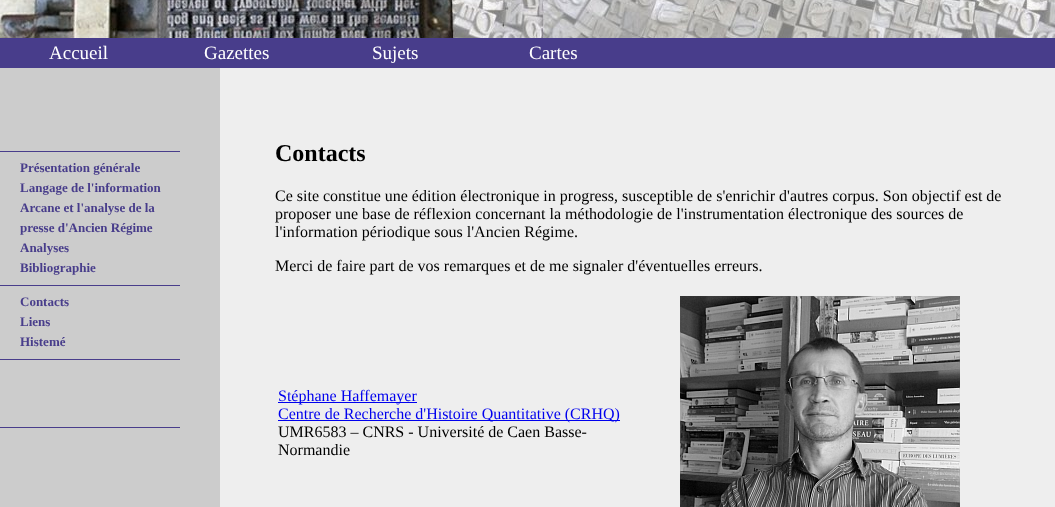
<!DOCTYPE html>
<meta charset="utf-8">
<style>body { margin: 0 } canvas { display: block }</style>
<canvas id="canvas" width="1055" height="507"></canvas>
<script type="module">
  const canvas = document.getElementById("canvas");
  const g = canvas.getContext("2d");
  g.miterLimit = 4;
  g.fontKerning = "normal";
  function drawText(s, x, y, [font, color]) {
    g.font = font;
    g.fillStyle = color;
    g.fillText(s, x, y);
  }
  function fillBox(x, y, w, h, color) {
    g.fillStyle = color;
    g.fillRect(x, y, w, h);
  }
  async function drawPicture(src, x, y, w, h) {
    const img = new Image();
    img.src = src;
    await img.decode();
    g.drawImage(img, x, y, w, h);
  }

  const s1 = ["19px Liberation Serif", "#FFFFFF"];
  const s2 = ["bold 13px Liberation Serif", "#483D8B"];
  const s3 = ["bold 24px Liberation Serif", "#000000"];
  const s4 = ["16px Liberation Serif", "#000000"];
  const s5 = ["16px Liberation Serif", "#0000EE"];

  fillBox(0, 0, 1055, 507, "#EEEEEE");
  await drawPicture("pic1.png", 0, 0, 1055, 38);
  fillBox(0, 38, 1055, 30, "#483D8B");
  drawText("Accueil", 49, 59, s1);
  drawText("Gazettes", 204, 59, s1);
  drawText("Sujets", 372, 59, s1);
  drawText("Cartes", 529, 59, s1);
  fillBox(0, 68, 220, 439, "#CCCCCC");
  fillBox(0, 151, 180, 1, "#483D8B");
  drawText("Présentation générale", 20, 172, s2);
  drawText("Langage de l'information", 20, 192, s2);
  drawText("Arcane et l'analyse de la", 20, 212, s2);
  drawText("presse d'Ancien Régime", 20, 232, s2);
  drawText("Analyses", 20, 252, s2);
  drawText("Bibliographie", 20, 272, s2);
  fillBox(0, 285, 180, 1, "#483D8B");
  drawText("Contacts", 20, 306, s2);
  drawText("Liens", 20, 326, s2);
  drawText("Histemé", 20, 346, s2);
  fillBox(0, 359, 180, 1, "#483D8B");
  fillBox(0, 427, 180, 1, "#483D8B");
  drawText("Contacts", 275, 161, s3);
  drawText("Ce site constitue une édition électronique in progress, susceptible de s'enrichir d'autres corpus. Son objectif est de", 275, 201, s4);
  drawText("proposer une base de réflexion concernant la méthodologie de l'instrumentation électronique des sources de", 275, 219, s4);
  drawText("l'information périodique sous l'Ancien Régime.", 275, 237, s4);
  drawText("Merci de faire part de vos remarques et de me signaler d'éventuelles erreurs.", 275, 271, s4);
  fillBox(278, 402, 139, 1, "#0000EE");
  drawText("Stéphane Haffemayer", 278, 401, s5);
  fillBox(278, 420, 342, 1, "#0000EE");
  drawText("Centre de Recherche d'Histoire Quantitative (CRHQ)", 278, 419, s5);
  drawText("UMR6583 – CNRS - Université de Caen Basse-", 278, 437, s4);
  drawText("Normandie", 278, 455, s4);
  await drawPicture("pic2.png", 680, 296, 280, 211);
</script>
